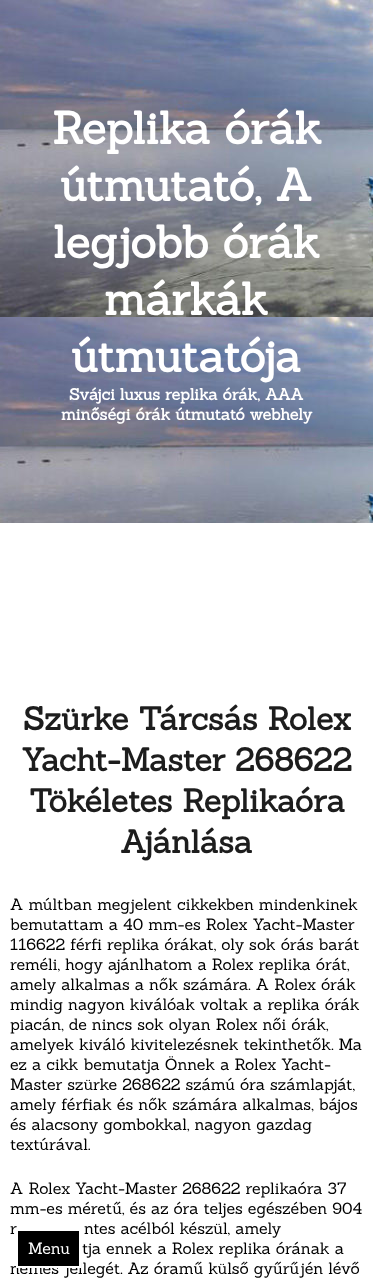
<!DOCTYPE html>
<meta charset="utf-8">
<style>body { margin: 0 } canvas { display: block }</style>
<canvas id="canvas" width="373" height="1284"></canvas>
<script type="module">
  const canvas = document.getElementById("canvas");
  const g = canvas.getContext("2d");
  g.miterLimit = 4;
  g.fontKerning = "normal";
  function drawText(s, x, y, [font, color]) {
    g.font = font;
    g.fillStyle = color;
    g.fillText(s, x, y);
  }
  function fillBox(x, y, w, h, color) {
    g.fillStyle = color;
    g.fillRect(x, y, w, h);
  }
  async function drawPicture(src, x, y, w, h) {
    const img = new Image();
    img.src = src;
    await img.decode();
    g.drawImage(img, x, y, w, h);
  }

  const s1 = ["bold 44.75px Sanchez", "#FFFFFF"];
  const s2 = ["bold 16px Sanchez", "#FFFFFF"];
  const s3 = ["bold 32px Sanchez", "#1D1D1D"];
  const s4 = ["16px Sanchez", "#000000"];
  const s5 = ["16px Sanchez", "#FFFFFF"];

  fillBox(0, 0, 373, 1284, "#FFFFFF");
  await drawPicture("pic1.png", 0, 0, 373, 523);
  drawText("Replika órák", 52, 144, s1);
  drawText("útmutató, A", 60, 201, s1);
  drawText("legjobb órák", 53, 258, s1);
  drawText("márkák", 104, 315, s1);
  drawText("útmutatója", 71, 372, s1);
  drawText("Svájci luxus replika órák, AAA", 69, 400, s2);
  drawText("minőségi órák útmutató webhely", 61, 420, s2);
  drawText("Szürke Tárcsás Rolex", 23, 730, s3);
  drawText("Yacht-Master 268622", 21, 771, s3);
  drawText("Tökéletes Replikaóra", 29, 812, s3);
  drawText("Ajánlása", 120, 853, s3);
  drawText("A múltban megjelent cikkekben mindenkinek", 10, 910, s4);
  drawText("bemutattam a 40 mm-es Rolex Yacht-Master", 10, 930, s4);
  drawText("116622 férfi replika órákat, oly sok órás barát", 10, 950, s4);
  drawText("reméli, hogy ajánlhatom a Rolex replika órát,", 10, 970, s4);
  drawText("amely alkalmas a nők számára. A Rolex órák", 10, 990, s4);
  drawText("mindig nagyon kiválóak voltak a replika órák", 10, 1010, s4);
  drawText("piacán, de nincs sok olyan Rolex női órák,", 10, 1030, s4);
  drawText("amelyek kiváló kivitelezésnek tekinthetők. Ma", 10, 1050, s4);
  drawText("ez a cikk bemutatja Önnek a Rolex Yacht-", 10, 1070, s4);
  drawText("Master szürke 268622 számú óra számlapját,", 10, 1090, s4);
  drawText("amely férfiak és nők számára alkalmas, bájos", 10, 1110, s4);
  drawText("és alacsony gombokkal, nagyon gazdag", 10, 1130, s4);
  drawText("textúrával.", 10, 1150, s4);
  drawText("A Rolex Yacht-Master 268622 replikaóra 37", 10, 1194, s4);
  drawText("mm-es méretű, és az óra teljes egészében 904", 10, 1214, s4);
  drawText("r", 10, 1234, s4);
  drawText("ntes acélból készül, amely", 84, 1234, s4);
  drawText("tja ennek a Rolex replika órának a", 82, 1254, s4);
  drawText("nemes jellegét. Az óramű külső gyűrűjén lévő", 10, 1274, s4);
  g.beginPath();
  g.rect(17, 1230, 63, 37);
  g.fill();
  g.strokeStyle = "#FFFFFF";
  g.lineWidth = 2;
  g.stroke();
  drawText("Menu", 28, 1254, s5);
</script>
